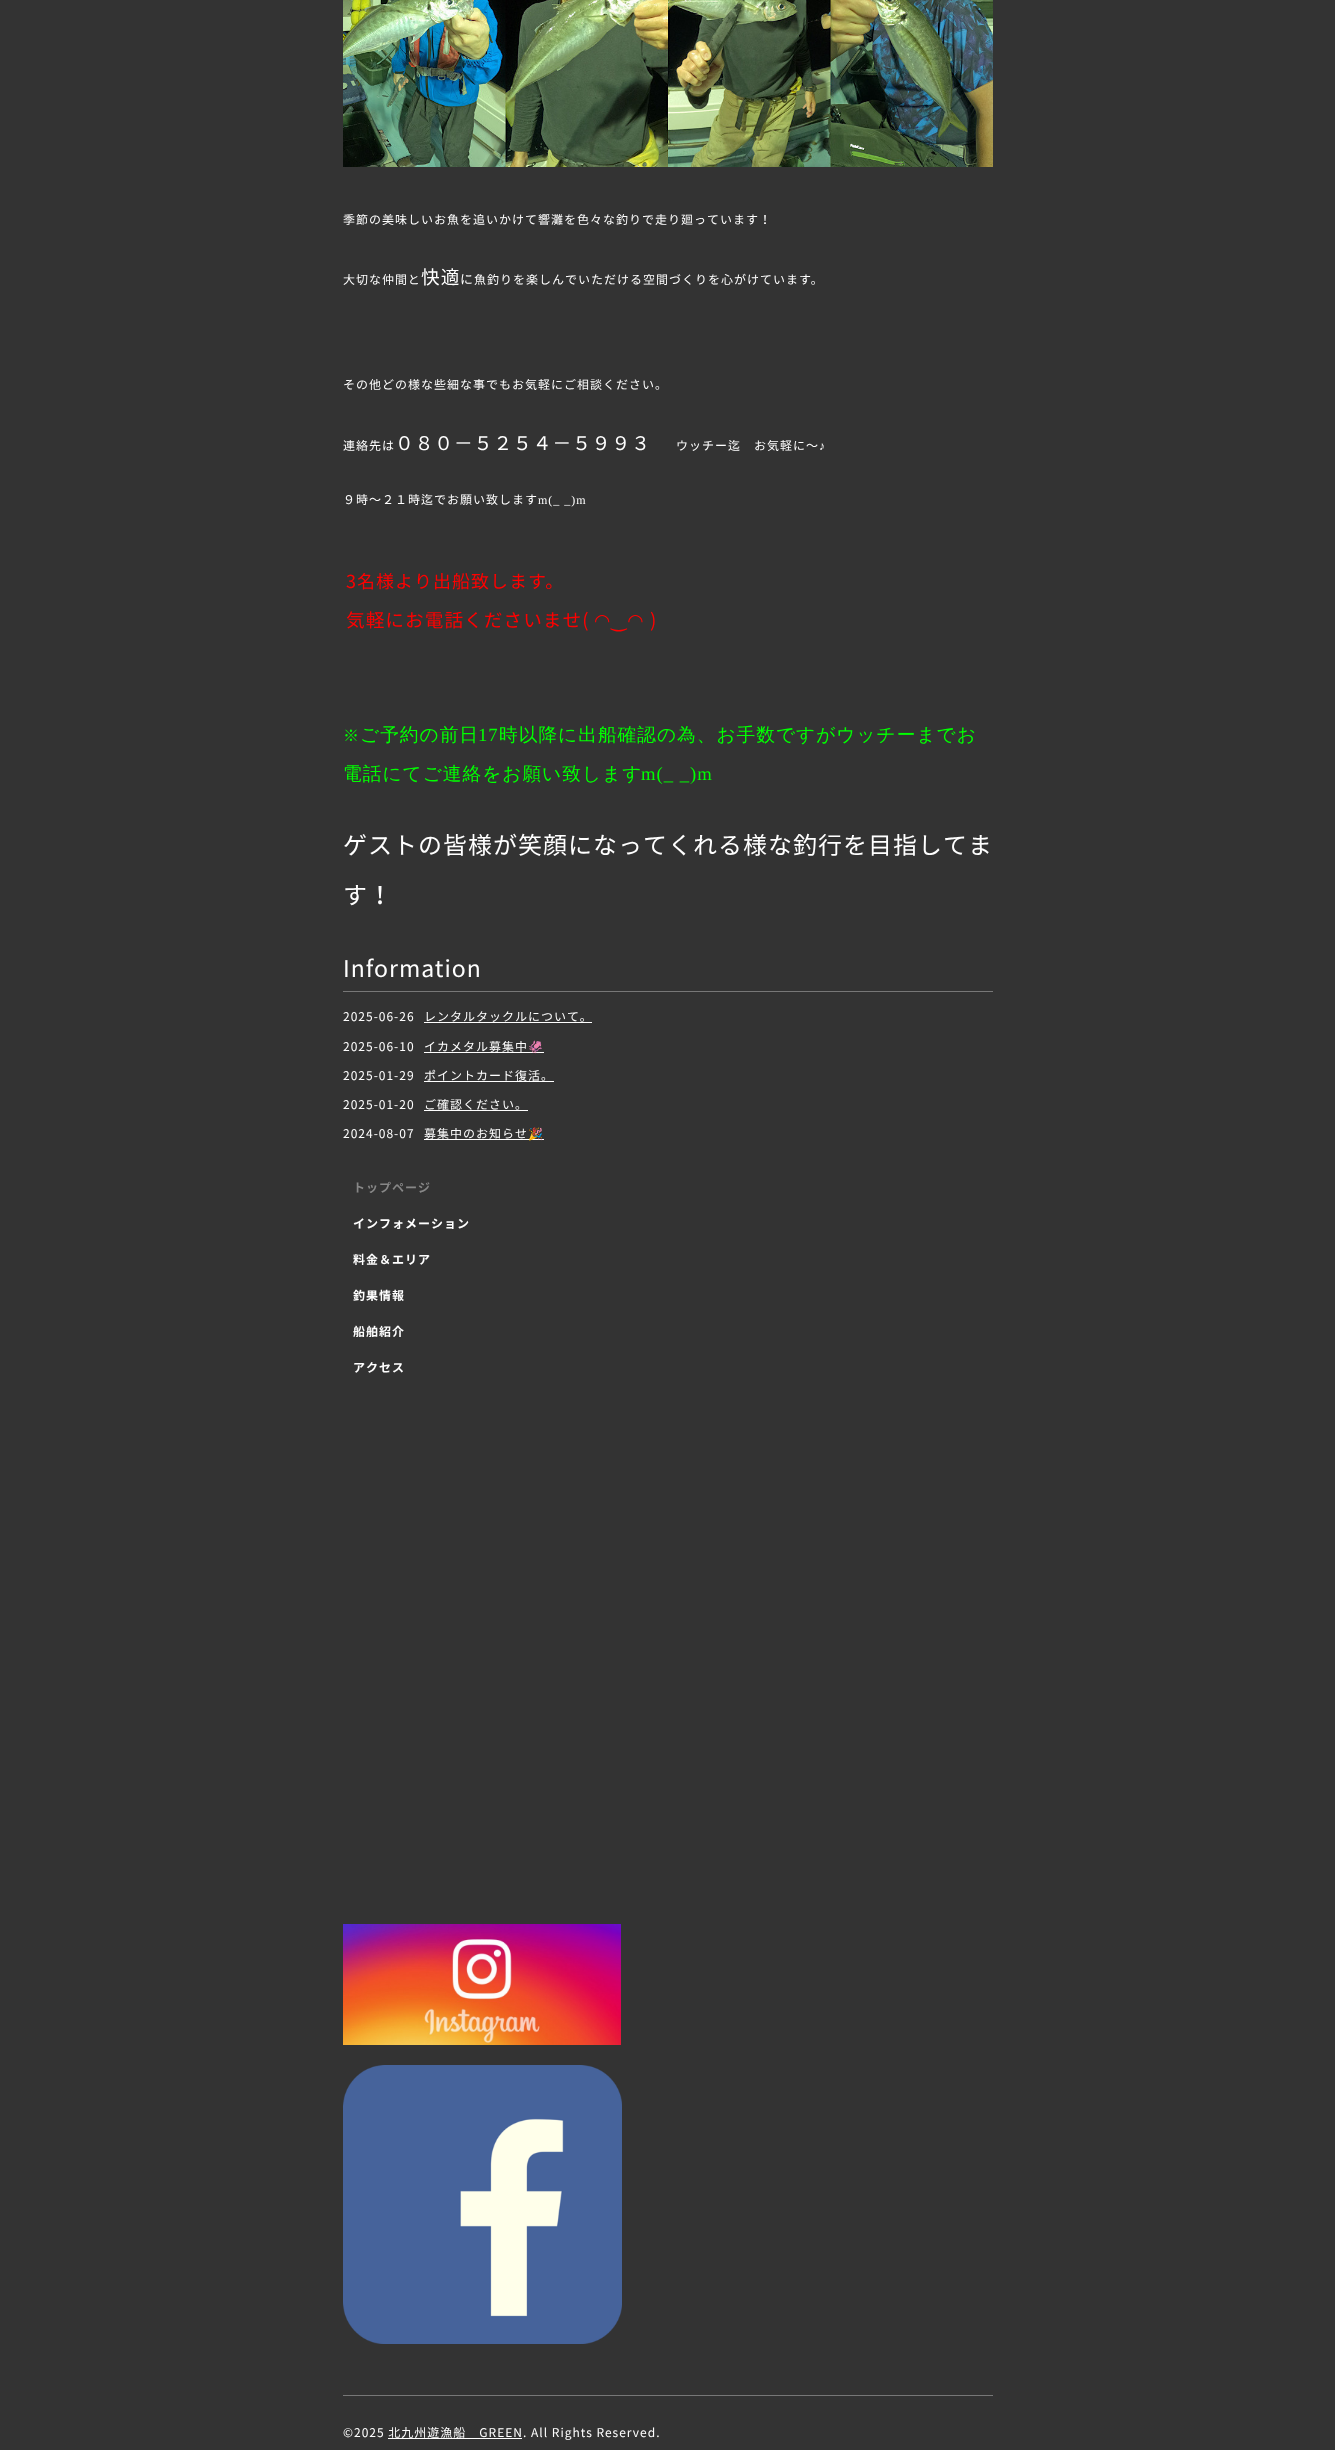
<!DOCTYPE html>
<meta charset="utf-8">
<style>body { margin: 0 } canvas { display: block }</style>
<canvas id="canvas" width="1335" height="2450"></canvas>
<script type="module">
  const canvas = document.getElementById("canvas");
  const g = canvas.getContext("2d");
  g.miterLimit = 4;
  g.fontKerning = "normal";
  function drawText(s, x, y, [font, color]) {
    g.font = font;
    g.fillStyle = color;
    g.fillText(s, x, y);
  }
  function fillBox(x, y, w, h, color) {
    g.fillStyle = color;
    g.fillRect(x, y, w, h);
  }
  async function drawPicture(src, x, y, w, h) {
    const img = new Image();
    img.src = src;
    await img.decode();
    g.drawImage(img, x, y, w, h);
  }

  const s1 = ["12px Noto Sans JP", "#FFFFFF"];
  const s2 = ["18.7px Noto Sans JP", "#FFFFFF"];
  const s3 = ["13px Noto Sans JP", "#FFFFFF"];
  const s4 = ["12px Liberation Serif", "#FFFFFF"];
  const s5 = ["18px Noto Sans JP", "#FF0000"];
  const s6 = ["18.7px Noto Sans JP", "#FF0000"];
  const s7 = ["18.7px DejaVu Sans", "#FF0000"];
  const s8 = ["500 16px WenQuanYi Zen Hei", "#00FF00"];
  const s9 = ["500 18.7px WenQuanYi Zen Hei", "#00FF00"];
  const s10 = ["18.7px Liberation Serif", "#00FF00"];
  const s11 = ["24px Noto Sans JP", "#FFFFFF"];
  const s12 = ["23px Noto Sans JP", "#FFFFFF"];
  const s13 = ["12px Noto Color Emoji", "#FFFFFF"];
  const s14 = ["bold 12px Noto Sans JP", "#878787"];
  const s15 = ["bold 12px Noto Sans JP", "#FFFFFF"];

  fillBox(0, 0, 1335, 2450, "#333333");
  await drawPicture("pic1.png", 343, 0, 650, 167);
  g.letterSpacing = "1px";
  drawText("季節の美味しいお魚を追いかけて響灘を色々な釣りで走り廻っています！", 343, 224, s1);
  drawText("大切な仲間と", 343, 284, s1);
  drawText("快適", 421, 284, s2);
  drawText("に", 460, 284, s3);
  drawText("魚釣りを楽しんでいただける空間づくりを心がけています。", 474, 284, s1);
  drawText("その他どの様な些細な事でもお気軽にご相談ください。", 343, 389, s1);
  drawText("連絡先は", 343, 450, s1);
  drawText("０８０−５２５４−５９９３", 395, 450, s2);
  drawText("ウッチー迄　お気軽に〜", 676, 450, s1);
  drawText("♪", 819, 450, s4);
  drawText("９時〜２１時迄でお願い致します", 343, 504, s1);
  drawText("m(_ _)m", 538, 504, s4);
  drawText("3名様より出船致します。", 346, 588, s5);
  drawText("気軽にお電話くださいませ(", 346, 627, s6);
  drawText("◠‿◠", 594, 627, s7);
  drawText(")", 650, 627, s6);
  drawText("※", 343, 741, s8);
  drawText("ご予約の前日", 360, 741, s9);
  drawText("17", 478, 741, s10);
  drawText("時以降に出船確認の為、お手数ですがウッチーまでお", 499, 741, s9);
  drawText("電話にてご連絡をお願い致します", 343, 780, s9);
  drawText("m(_ _)m", 641, 780, s10);
  drawText("ゲストの皆様が笑顔になってくれる様な釣行を目指してま", 343, 854, s11);
  drawText("す！", 343, 904, s11);
  fillBox(343, 991, 650, 1, "#777777");
  drawText("Information", 343, 977, s12);
  drawText("2025-06-26", 343, 1021, s1);
  drawText("レンタルタックルについて。", 424, 1021, s1);
  fillBox(424, 1022, 168, 1, "#FFFFFF");
  drawText("2025-06-10", 343, 1051, s1);
  drawText("イカメタル募集中", 424, 1051, s1);
  fillBox(424, 1052, 120, 1, "#FFFFFF");
  drawText("🦑", 528, 1051, s13);
  drawText("2025-01-29", 343, 1080, s1);
  drawText("ポイントカード復活。", 424, 1080, s1);
  fillBox(424, 1081, 130, 1, "#FFFFFF");
  drawText("2025-01-20", 343, 1109, s1);
  drawText("ご確認ください。", 424, 1109, s1);
  fillBox(424, 1110, 104, 1, "#FFFFFF");
  drawText("2024-08-07", 343, 1138, s1);
  drawText("募集中のお知らせ", 424, 1138, s1);
  fillBox(424, 1139, 120, 1, "#FFFFFF");
  drawText("🎉", 528, 1138, s13);
  drawText("トップページ", 353, 1192, s14);
  drawText("インフォメーション", 353, 1228, s15);
  drawText("料金＆エリア", 353, 1264, s15);
  drawText("釣果情報", 353, 1300, s15);
  drawText("船舶紹介", 353, 1336, s15);
  drawText("アクセス", 353, 1372, s15);
  await drawPicture("pic2.png", 343, 1924, 278, 121);
  await drawPicture("pic3.png", 343, 2065, 279, 279);
  fillBox(343, 2395, 650, 1, "#777777");
  drawText("©2025 北九州遊漁船　GREEN. All Rights Reserved.", 343, 2437, s1);
  fillBox(388, 2438, 134, 1, "#FFFFFF");
</script>
